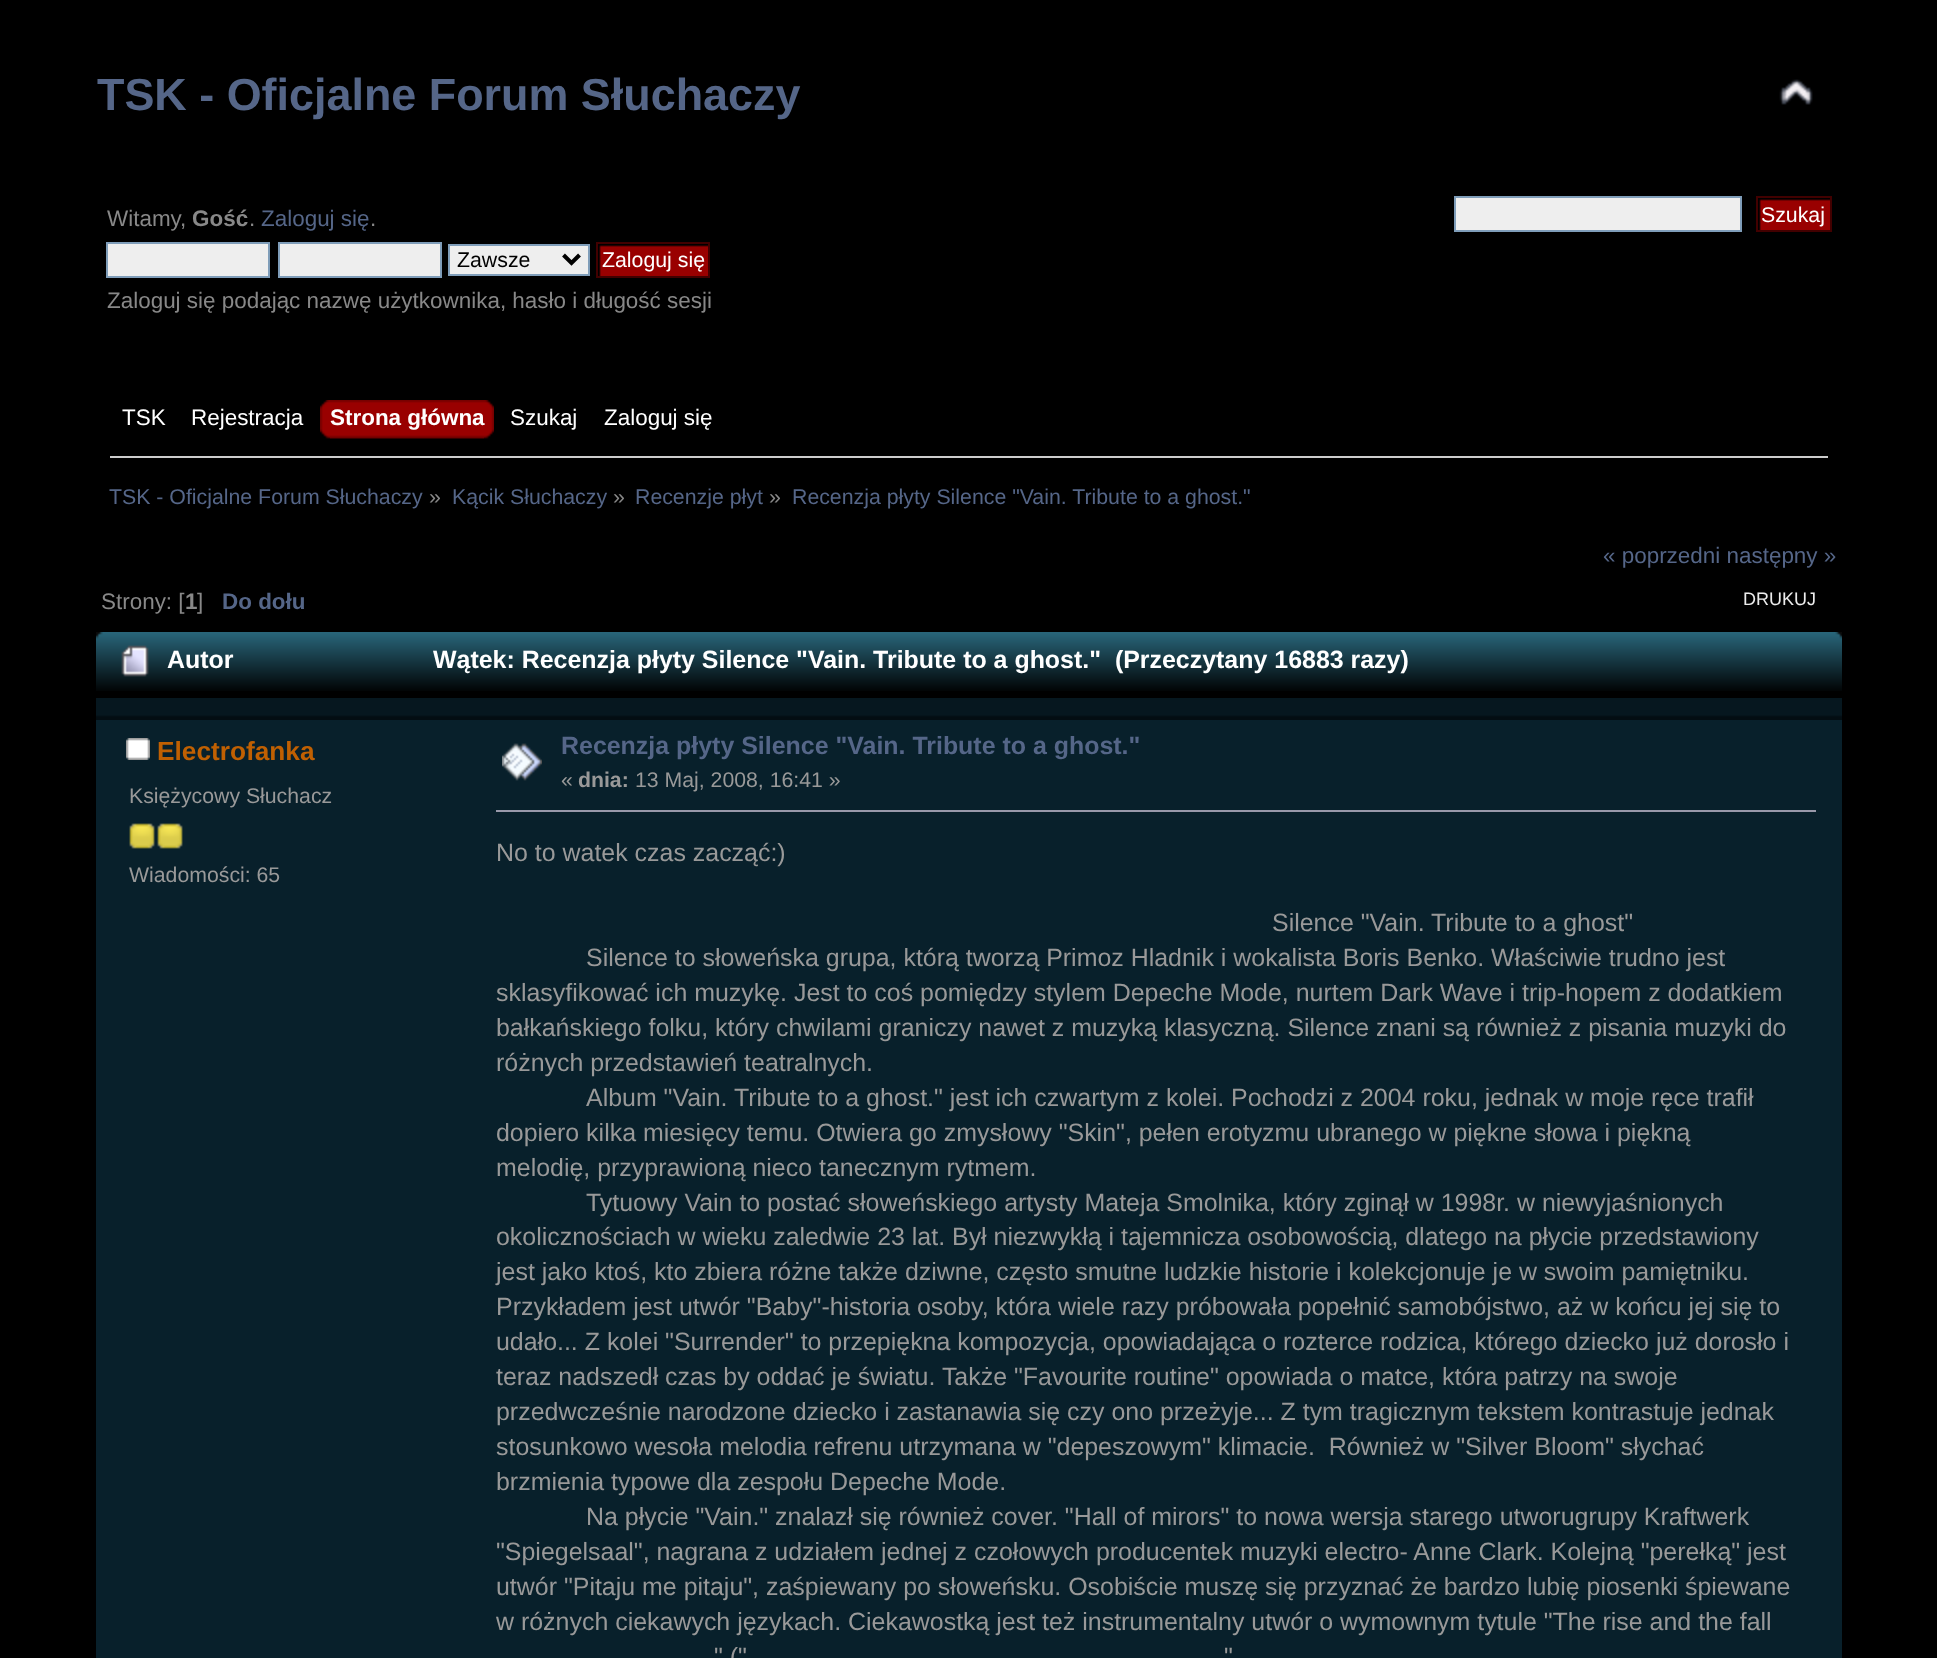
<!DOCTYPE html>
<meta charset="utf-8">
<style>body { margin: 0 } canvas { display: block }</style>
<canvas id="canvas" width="1937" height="1658"></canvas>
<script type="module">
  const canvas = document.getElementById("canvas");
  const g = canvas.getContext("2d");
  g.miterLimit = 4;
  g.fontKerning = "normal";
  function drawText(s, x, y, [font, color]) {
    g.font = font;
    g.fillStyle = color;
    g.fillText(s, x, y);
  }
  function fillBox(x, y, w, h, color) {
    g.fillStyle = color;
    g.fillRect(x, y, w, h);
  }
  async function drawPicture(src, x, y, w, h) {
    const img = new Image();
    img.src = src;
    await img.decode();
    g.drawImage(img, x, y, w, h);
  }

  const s1 = ["bold 44.9px Liberation Sans", "#556688"];
  const s2 = ["22.45px Liberation Sans", "#888888"];
  const s3 = ["bold 22.45px Liberation Sans", "#888888"];
  const s4 = ["22.45px Liberation Sans", "#556688"];
  const s5 = ["21.3px Liberation Sans", "#000000"];
  const s6 = ["21.3px Liberation Sans", "#FFFFFF"];
  const s7 = ["22.45px Liberation Sans", "#FFFFFF"];
  const s8 = ["bold 22.45px Liberation Sans", "#FFFFFF"];
  const s9 = ["21.3px Liberation Sans", "#556688"];
  const s10 = ["21.3px Liberation Sans", "#888888"];
  const s11 = ["bold 22.45px Liberation Sans", "#556688"];
  const s12 = ["18px Liberation Sans", "#ECECEC"];
  const s13 = ["bold 24.95px Liberation Sans", "#FFFFFF"];
  const s14 = ["bold 26.25px Liberation Sans", "#C06002"];
  const s15 = ["21.25px Liberation Sans", "#999999"];
  const s16 = ["bold 24.95px Liberation Sans", "#556688"];
  const s17 = ["bold 21.25px Liberation Sans", "#999999"];
  const s18 = ["24.95px Liberation Sans", "#999999"];

  fillBox(0, 0, 1937, 1658, "#000000");
  drawText("TSK - Oficjalne Forum Słuchaczy", 97, 110, s1);
  await drawPicture("pic1.png", 1779, 79, 34, 26);
  drawText("Witamy,", 107, 226, s2);
  drawText("Gość", 192, 226, s3);
  drawText(".", 249, 226, s2);
  drawText("Zaloguj się", 261, 226, s4);
  drawText(".", 370, 226, s2);
  g.fillStyle = "#EEEEEE";
  g.beginPath();
  g.rect(107, 243, 162, 34);
  g.fill();
  g.strokeStyle = "#7F9DB9";
  g.lineWidth = 2;
  g.stroke();
  g.beginPath();
  g.rect(279, 243, 162, 34);
  g.fill();
  g.stroke();
  g.beginPath();
  g.rect(449, 245, 140, 30);
  g.fill();
  g.stroke();
  g.beginPath();
  g.moveTo(563.5, 255);
  g.lineTo(571.5, 263);
  g.lineTo(579.5, 255);
  g.strokeStyle = "#000000";
  g.lineWidth = 4;
  g.stroke();
  drawText("Zawsze", 457, 267, s5);
  await drawPicture("pic2.png", 598, 244, 110, 32);
  g.strokeStyle = "#420000";
  g.lineWidth = 2;
  g.strokeRect(597, 243, 112, 34);
  drawText("Zaloguj się", 602, 267, s6);
  drawText("Zaloguj się podając nazwę użytkownika, hasło i długość sesji", 107, 308, s2);
  g.fillStyle = "#EEEEEE";
  g.beginPath();
  g.rect(1455, 197, 286, 34);
  g.fill();
  g.strokeStyle = "#7F9DB9";
  g.stroke();
  await drawPicture("pic3.png", 1758, 198, 72, 32);
  g.strokeStyle = "#420000";
  g.strokeRect(1757, 197, 74, 34);
  drawText("Szukaj", 1761, 222, s6);
  drawText("TSK", 122, 425, s7);
  drawText("Rejestracja", 191, 425, s7);
  await drawPicture("pic4.png", 330, 400, 164, 39);
  await drawPicture("pic5.png", 320, 400, 164, 39);
  drawText("Strona główna", 330, 425, s8);
  drawText("Szukaj", 510, 425, s7);
  drawText("Zaloguj się", 604, 425, s7);
  fillBox(110, 456, 1718, 2, "#CCCCCC");
  drawText("TSK - Oficjalne Forum Słuchaczy", 109, 504, s9);
  drawText("»", 429, 504, s10);
  drawText("Kącik Słuchaczy", 452, 504, s9);
  drawText("»", 613, 504, s10);
  drawText("Recenzje płyt", 635, 504, s9);
  drawText("»", 769, 504, s10);
  drawText("Recenzja płyty Silence \"Vain. Tribute to a ghost.\"", 792, 504, s9);
  drawText("« poprzedni następny »", 1603, 563, s4);
  drawText("Strony: [", 101, 609, s2);
  drawText("1", 185, 609, s3);
  drawText("]", 197, 609, s2);
  drawText("Do dołu", 222, 609, s11);
  drawText("DRUKUJ", 1743, 605, s12);
  await drawPicture("pic6.png", 96, 632, 1746, 59);
  await drawPicture("pic7.png", 1835, 632, 7, 7);
  await drawPicture("pic8.png", 121, 645, 28, 32);
  drawText("Autor", 167, 668, s13);
  drawText("Wątek: Recenzja płyty Silence \"Vain. Tribute to a ghost.\"  (Przeczytany 16883 razy)", 433, 668, s13);
  fillBox(96, 720, 1746, 938, "#08202B");
  await drawPicture("pic9.png", 96, 698, 1746, 22);
  await drawPicture("pic10.png", 126, 738, 24, 22);
  drawText("Electrofanka", 157, 760, s14);
  drawText("Księżycowy Słuchacz", 129, 803, s15);
  await drawPicture("pic11.png", 129, 823, 26, 26);
  await drawPicture("pic11.png", 157, 823, 26, 26);
  drawText("Wiadomości: 65", 129, 882, s15);
  await drawPicture("pic12.png", 502, 743, 40, 38);
  drawText("Recenzja płyty Silence \"Vain. Tribute to a ghost.\"", 561, 754, s16);
  drawText("«", 561, 787, s15);
  drawText("dnia:", 578, 787, s17);
  drawText("13 Maj, 2008, 16:41 »", 635, 787, s15);
  fillBox(496, 810, 1320, 2, "#9999AA");
  drawText("No to watek czas zacząć:)", 496, 861, s18);
  drawText("Silence \"Vain. Tribute to a ghost\"", 1272, 931, s18);
  drawText("Silence to słoweńska grupa, którą tworzą Primoz Hladnik i wokalista Boris Benko. Właściwie trudno jest", 586, 966, s18);
  drawText("sklasyfikować ich muzykę. Jest to coś pomiędzy stylem Depeche Mode, nurtem Dark Wave i trip-hopem z dodatkiem", 496, 1001, s18);
  drawText("bałkańskiego folku, który chwilami graniczy nawet z muzyką klasyczną. Silence znani są również z pisania muzyki do", 496, 1036, s18);
  drawText("różnych przedstawień teatralnych.", 496, 1071, s18);
  drawText("Album \"Vain. Tribute to a ghost.\" jest ich czwartym z kolei. Pochodzi z 2004 roku, jednak w moje ręce trafił", 586, 1106, s18);
  drawText("dopiero kilka miesięcy temu. Otwiera go zmysłowy \"Skin\", pełen erotyzmu ubranego w piękne słowa i piękną", 496, 1141, s18);
  drawText("melodię, przyprawioną nieco tanecznym rytmem.", 496, 1176, s18);
  drawText("Tytuowy Vain to postać słoweńskiego artysty Mateja Smolnika, który zginął w 1998r. w niewyjaśnionych", 586, 1211, s18);
  drawText("okolicznościach w wieku zaledwie 23 lat. Był niezwykłą i tajemnicza osobowością, dlatego na płycie przedstawiony", 496, 1245, s18);
  drawText("jest jako ktoś, kto zbiera różne także dziwne, często smutne ludzkie historie i kolekcjonuje je w swoim pamiętniku.", 496, 1280, s18);
  drawText("Przykładem jest utwór \"Baby\"-historia osoby, która wiele razy próbowała popełnić samobójstwo, aż w końcu jej się to", 496, 1315, s18);
  drawText("udało... Z kolei \"Surrender\" to przepiękna kompozycja, opowiadająca o rozterce rodzica, którego dziecko już dorosło i", 496, 1350, s18);
  drawText("teraz nadszedł czas by oddać je światu. Także \"Favourite routine\" opowiada o matce, która patrzy na swoje", 496, 1385, s18);
  drawText("przedwcześnie narodzone dziecko i zastanawia się czy ono przeżyje... Z tym tragicznym tekstem kontrastuje jednak", 496, 1420, s18);
  drawText("stosunkowo wesoła melodia refrenu utrzymana w \"depeszowym\" klimacie.  Również w \"Silver Bloom\" słychać", 496, 1455, s18);
  drawText("brzmienia typowe dla zespołu Depeche Mode.", 496, 1490, s18);
  drawText("Na płycie \"Vain.\" znalazł się również cover. \"Hall of mirors\" to nowa wersja starego utworugrupy Kraftwerk", 586, 1525, s18);
  drawText("\"Spiegelsaal\", nagrana z udziałem jednej z czołowych producentek muzyki electro- Anne Clark. Kolejną \"perełką\" jest", 496, 1560, s18);
  drawText("utwór \"Pitaju me pitaju\", zaśpiewany po słoweńsku. Osobiście muszę się przyznać że bardzo lubię piosenki śpiewane", 496, 1595, s18);
  drawText("w różnych ciekawych językach. Ciekawostką jest też instrumentalny utwór o wymownym tytule \"The rise and the fall", 496, 1630, s18);
  drawText("\" (\"", 714, 1665, s18);
  drawText("\"", 1224, 1665, s18);
</script>
